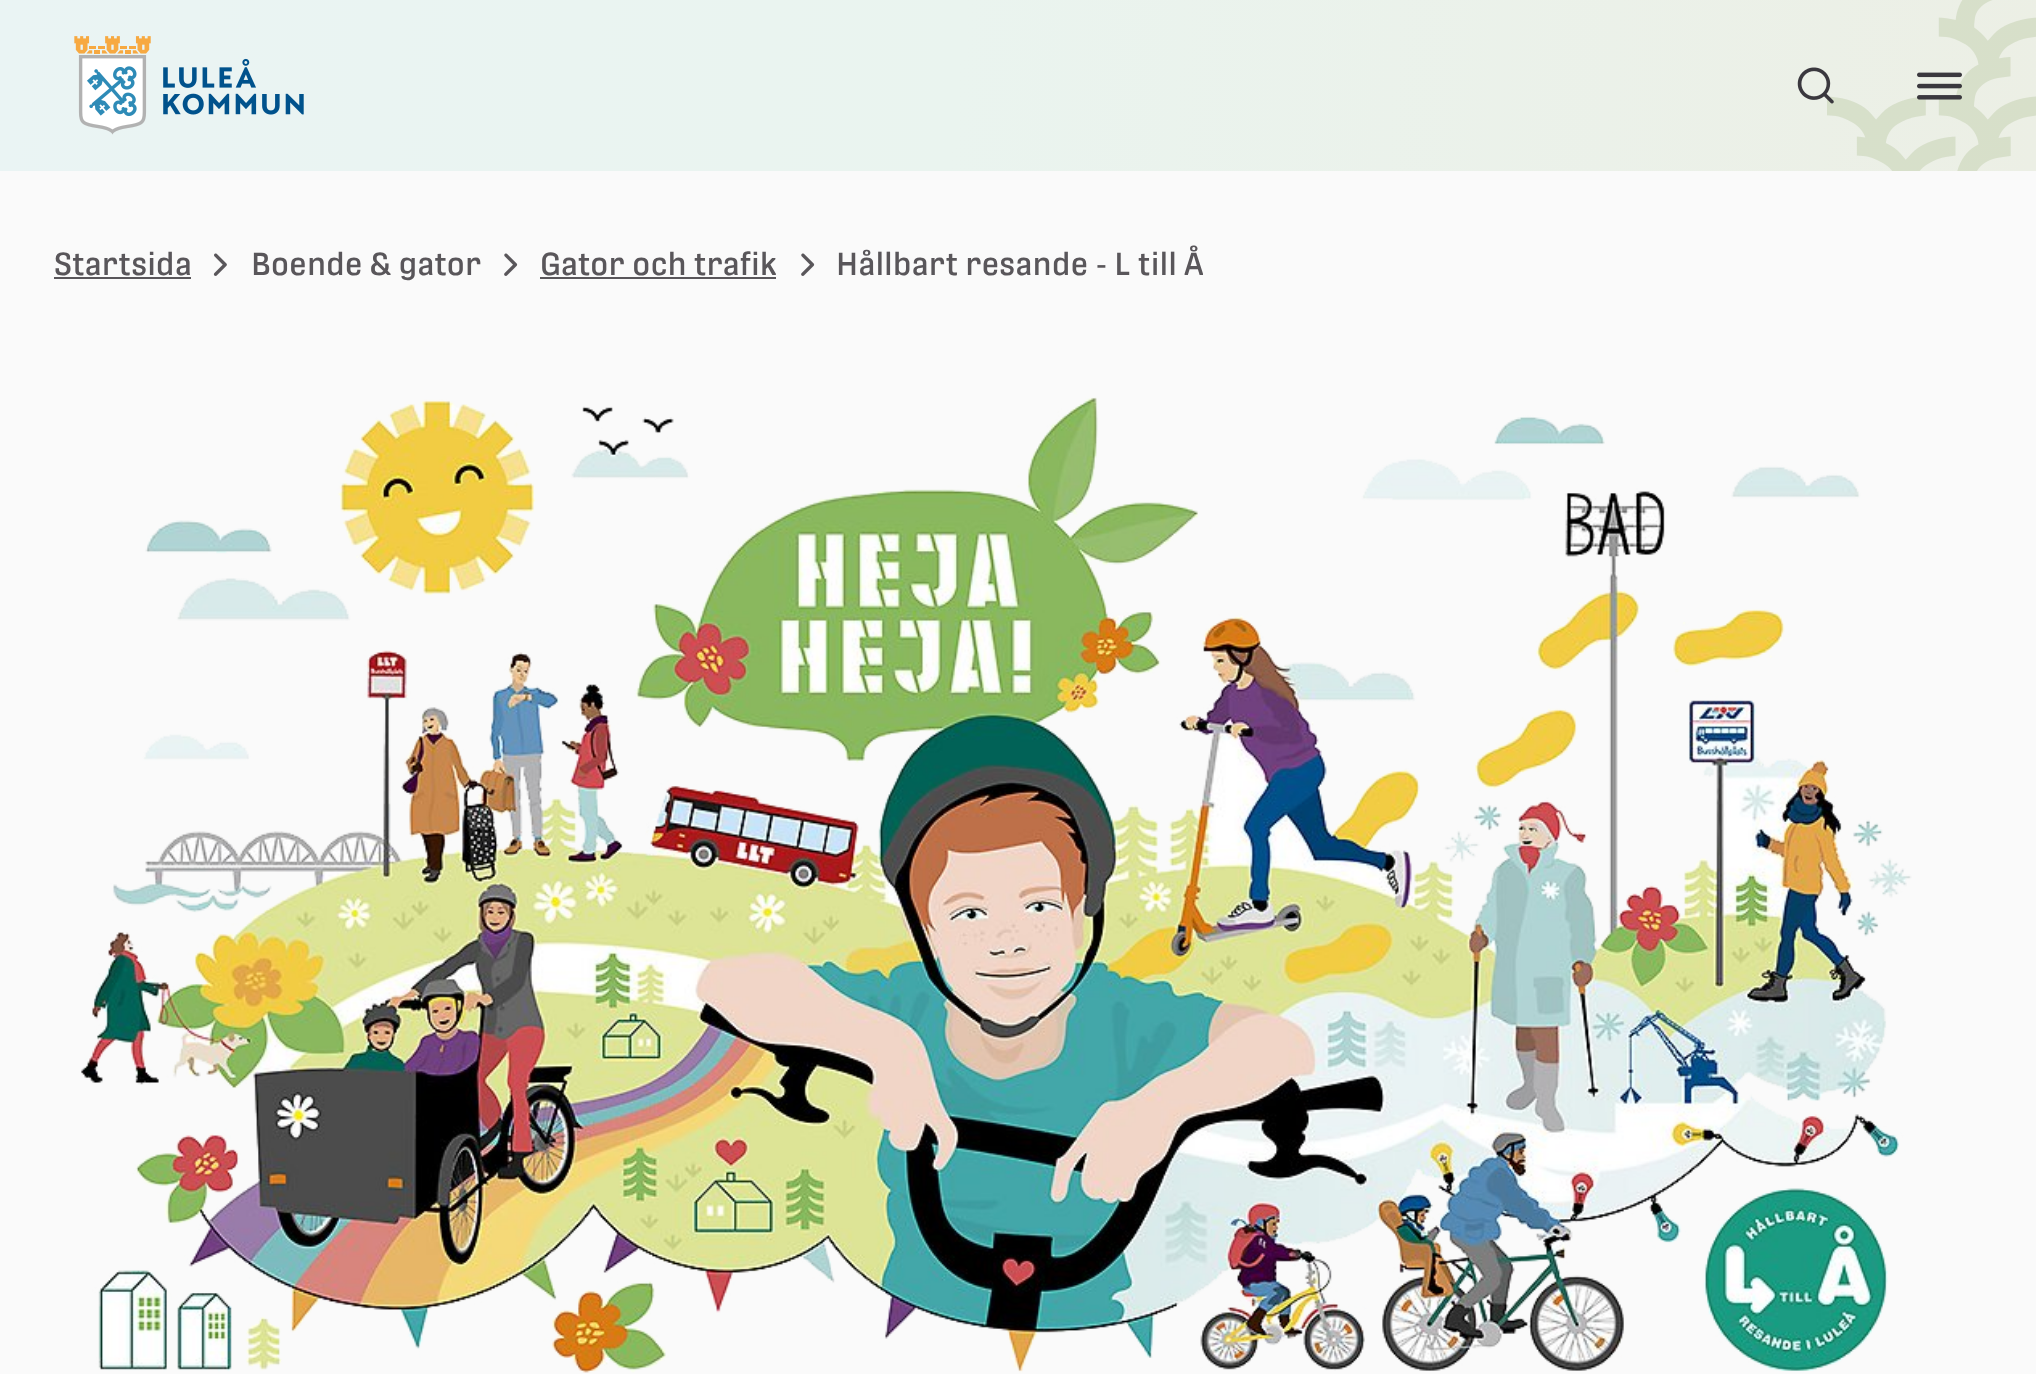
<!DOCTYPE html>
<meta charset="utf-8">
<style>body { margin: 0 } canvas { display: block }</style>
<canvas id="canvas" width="2036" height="1374"></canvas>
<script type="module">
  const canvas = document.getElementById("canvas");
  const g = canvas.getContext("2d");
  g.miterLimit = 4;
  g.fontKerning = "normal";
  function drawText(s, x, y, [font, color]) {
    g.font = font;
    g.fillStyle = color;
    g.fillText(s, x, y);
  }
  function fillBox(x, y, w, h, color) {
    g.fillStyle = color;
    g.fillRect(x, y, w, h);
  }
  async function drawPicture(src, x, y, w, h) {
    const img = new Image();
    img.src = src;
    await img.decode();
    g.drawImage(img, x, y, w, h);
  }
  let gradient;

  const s1 = ["500 31.5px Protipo", "#59565A"];

  fillBox(0, 0, 2036, 1374, "#FAFAFA");
  gradient = g.createLinearGradient(2036, 175, 0.3, -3.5);
  gradient.addColorStop(0, "#ECEFE5");
  gradient.addColorStop(0.53, "#EAF4EF");
  gradient.addColorStop(1, "#EAF4F4");
  g.fillStyle = gradient;
  g.fillRect(0, 0, 2036, 171);
  await drawPicture("pic1.png", 1827, 0, 209, 171);
  await drawPicture("pic2.png", 74, 36, 230, 99);
  await drawPicture("pic3.png", 1797, 67, 37, 37);
  await drawPicture("pic4.png", 1917, 72, 45, 28);
  drawText("Startsida", 54, 275, s1);
  fillBox(54, 277, 137, 2, "#59565A");
  await drawPicture("pic5.png", 213, 253, 14, 23);
  drawText("Boende & gator", 251, 275, s1);
  await drawPicture("pic6.png", 504, 253, 14, 23);
  drawText("Gator och trafik", 540, 275, s1);
  fillBox(540, 277, 236, 2, "#59565A");
  await drawPicture("pic6.png", 801, 253, 14, 23);
  drawText("Hållbart resande - L till Å", 836, 275, s1);
  await drawPicture("pic7.png", 81, 397, 1831, 976);
</script>
